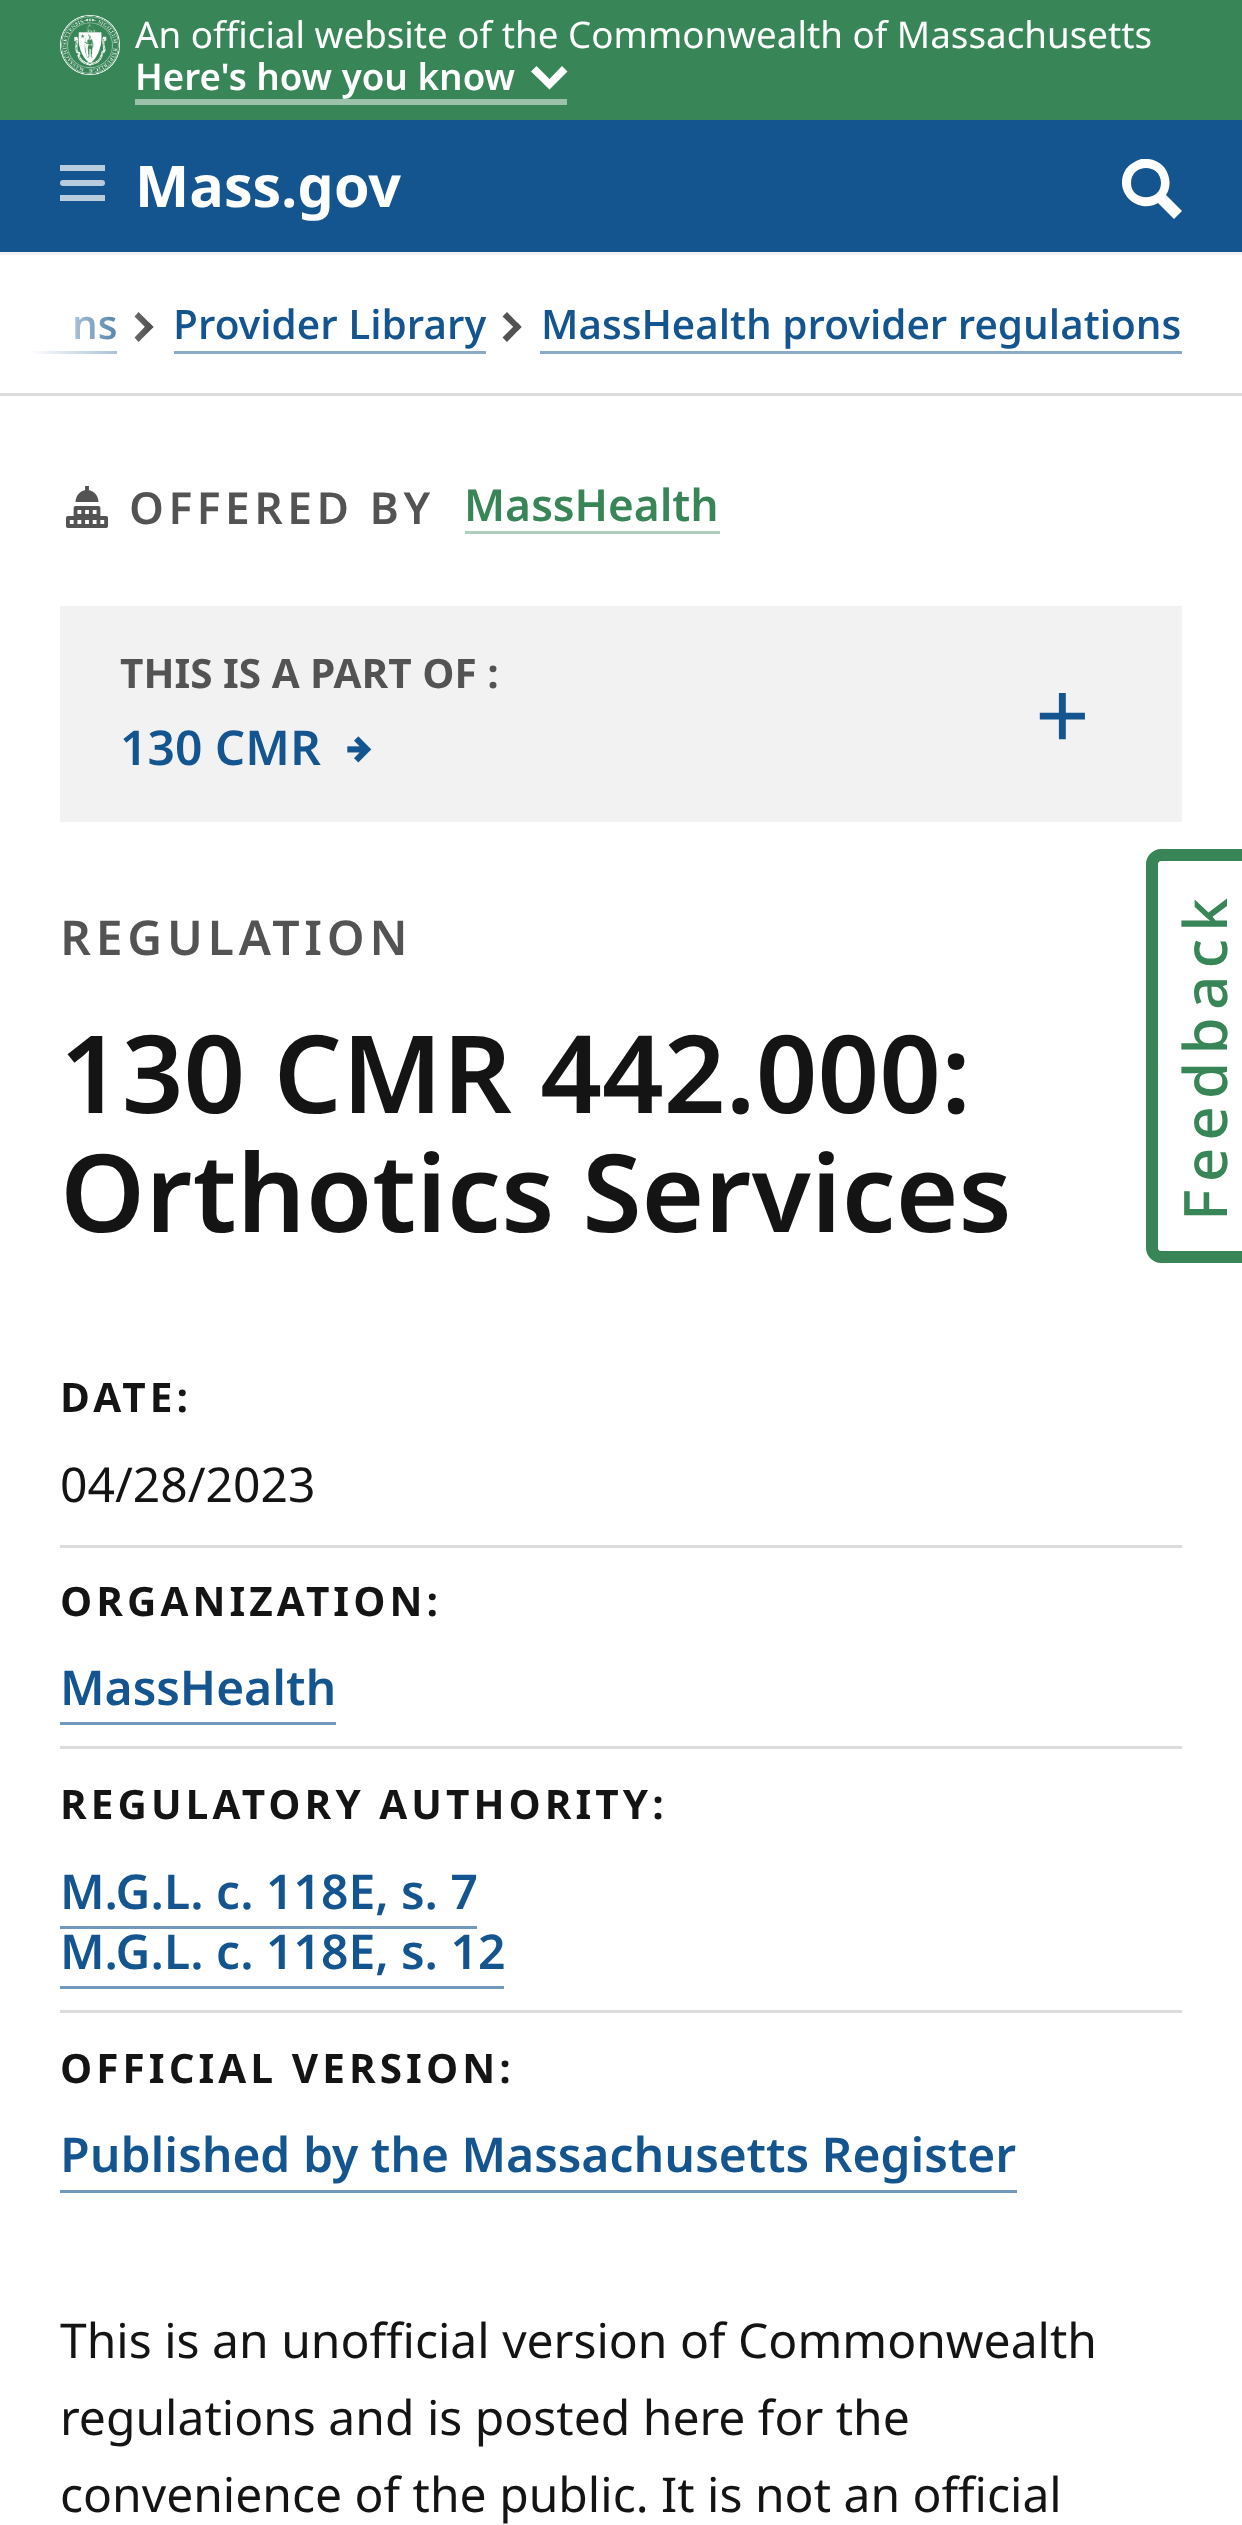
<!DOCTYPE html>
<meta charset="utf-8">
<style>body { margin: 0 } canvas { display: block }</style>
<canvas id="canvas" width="1242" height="2525"></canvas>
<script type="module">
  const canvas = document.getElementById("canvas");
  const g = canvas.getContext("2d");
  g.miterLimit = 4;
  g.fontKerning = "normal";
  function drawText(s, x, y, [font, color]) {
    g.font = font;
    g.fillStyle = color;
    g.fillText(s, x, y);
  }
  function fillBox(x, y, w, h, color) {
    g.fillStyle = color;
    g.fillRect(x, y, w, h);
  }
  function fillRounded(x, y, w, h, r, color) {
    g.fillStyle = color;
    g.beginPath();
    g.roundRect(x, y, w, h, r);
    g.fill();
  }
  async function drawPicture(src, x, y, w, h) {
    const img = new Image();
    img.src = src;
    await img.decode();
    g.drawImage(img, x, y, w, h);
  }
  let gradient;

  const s1 = ["36.75px Noto Sans", "#FFFFFF"];
  const s2 = ["600 36.75px Noto Sans", "#FFFFFF"];
  const s3 = ["bold 57.5px Noto Sans", "#FFFFFF"];
  const s4 = ["500 40.5px Noto Sans", "#14558F"];
  const s5 = ["600 44.25px Noto Sans", "#535353"];
  const s6 = ["600 44.25px Noto Sans", "#388557"];
  const s7 = ["bold 40.5px Noto Sans", "#535353"];
  const s8 = ["96px Noto Sans", "#14558F"];
  const s9 = ["600 48px Noto Sans", "#14558F"];
  const s10 = ["600 48px Noto Sans", "#535353"];
  const s11 = ["600 108px Noto Sans", "#141414"];
  const s12 = ["bold 40.5px Noto Sans", "#141414"];
  const s13 = ["48px Noto Sans", "#141414"];

  fillBox(0, 0, 1242, 2525, "#FFFFFF");
  fillBox(0, 0, 1242, 120, "#388557");
  await drawPicture("pic1.png", 60, 15, 60, 60);
  drawText("An official website of the Commonwealth of Massachusetts", 135, 48, s1);
  fillBox(135, 99, 432, 6, "#9CC2AB");
  drawText("Here's how you know", 135, 90, s2);
  g.beginPath();
  g.moveTo(549.5, 89.5);
  g.lineTo(531, 71.5);
  g.lineTo(536.5, 66);
  g.lineTo(549.5, 79);
  g.lineTo(562, 66);
  g.lineTo(567.5, 71.5);
  g.lineTo(549.5, 89.5);
  g.fill();
  fillBox(0, 252, 1242, 3, "#F2F2F2");
  fillBox(0, 120, 1242, 132, "#14558F");
  fillRounded(60, 180, 45, 6, 3, "#B9CCDD");
  fillBox(60, 165, 45, 6, "#B9CCDD");
  fillBox(60, 195, 45, 6, "#B9CCDD");
  drawText("Mass.gov", 135, 207, s3);
  g.save();
  g.beginPath();
  g.rect(1122, 159, 60, 60);
  g.clip();
  g.beginPath();
  g.moveTo(1182, 211);
  g.lineTo(1166, 195);
  g.bezierCurveTo(1172, 186, 1170, 174, 1163, 166);
  g.bezierCurveTo(1157, 160, 1149, 158, 1141, 159);
  g.bezierCurveTo(1135, 161, 1130, 164, 1126, 169);
  g.bezierCurveTo(1112, 191, 1137, 215, 1158, 203);
  g.lineTo(1174, 219);
  g.closePath();
  g.moveTo(1131, 183);
  g.bezierCurveTo(1131, 163, 1161, 163, 1161, 183);
  g.bezierCurveTo(1161, 202, 1131, 202, 1131, 183);
  g.closePath();
  g.fill();
  g.restore();
  fillBox(0, 393, 1242, 3, "#DCDCDC");
  fillBox(31, 351, 86, 3, "#8AAAC7");
  drawText("ns", 72, 339, s4);
  g.fillStyle = "#535353";
  g.beginPath();
  g.moveTo(134.5, 316.5);
  g.lineTo(138.5, 312);
  g.lineTo(153.5, 327);
  g.lineTo(149, 331);
  g.closePath();
  g.fill();
  g.beginPath();
  g.moveTo(134.5, 337.5);
  g.lineTo(149, 322.5);
  g.lineTo(153.5, 327);
  g.lineTo(138.5, 342);
  g.closePath();
  g.fill();
  fillBox(174, 351, 312, 3, "#8AAAC7");
  drawText("Provider Library", 173, 339, s4);
  g.fillStyle = "#535353";
  g.beginPath();
  g.moveTo(502.5, 316.5);
  g.lineTo(507, 312);
  g.lineTo(521.5, 327);
  g.lineTo(517.5, 331);
  g.closePath();
  g.fill();
  g.beginPath();
  g.moveTo(502.5, 337.5);
  g.lineTo(517.5, 322.5);
  g.lineTo(521.5, 327);
  g.lineTo(507, 342);
  g.closePath();
  g.fill();
  fillBox(540, 351, 642, 3, "#8AAAC7");
  drawText("MassHealth provider regulations", 541, 339, s4);
  gradient = g.createLinearGradient(0, 308, 150, 308);
  gradient.addColorStop(0.2, "#FFFFFF");
  gradient.addColorStop(1, "rgba(255, 255, 255, 0)");
  g.fillStyle = gradient;
  g.fillRect(31, 312, 116, 42);
  await drawPicture("pic2.png", 66, 486, 42, 42);
  g.letterSpacing = "4.5px";
  drawText("OFFERED BY", 129, 524, s5);
  g.letterSpacing = "0px";
  drawText("MassHealth", 464, 521, s6);
  fillBox(465, 531, 255, 3, "#AFCEBC");
  fillBox(60, 606, 1122, 216, "#F2F2F2");
  drawText("THIS IS A PART OF :", 120, 688, s7);
  drawText("+", 1035, 750, s8);
  drawText("130 CMR", 120, 765, s9);
  await drawPicture("pic3.png", 347, 736, 25, 27);
  g.letterSpacing = "4.75px";
  drawText("REGULATION", 60, 955, s10);
  g.letterSpacing = "0px";
  drawText("130 CMR 442.000:", 60, 1113, s11);
  drawText("Orthotics Services", 60, 1232, s11);
  g.letterSpacing = "4.05px";
  drawText("DATE:", 60, 1412, s12);
  g.letterSpacing = "0px";
  drawText("04/28/2023", 60, 1502, s13);
  fillBox(60, 1545, 1122, 3, "#DCDCDC");
  g.letterSpacing = "4.05px";
  drawText("ORGANIZATION:", 60, 1616, s12);
  g.letterSpacing = "0px";
  drawText("MassHealth", 60, 1705, s9);
  fillBox(60, 1722, 276, 3, "#7299BC");
  fillBox(60, 1746, 1122, 3, "#DCDCDC");
  g.letterSpacing = "4.05px";
  drawText("REGULATORY AUTHORITY:", 60, 1819, s12);
  g.letterSpacing = "0px";
  drawText("M.G.L. c. 118E, s. 7", 60, 1909, s9);
  fillBox(60, 1926, 417, 3, "#7299BC");
  drawText("M.G.L. c. 118E, s. 12", 60, 1969, s9);
  fillBox(60, 1986, 444, 3, "#7299BC");
  fillBox(60, 2010, 1122, 3, "#DCDCDC");
  g.letterSpacing = "4.05px";
  drawText("OFFICIAL VERSION:", 60, 2083, s12);
  g.letterSpacing = "0px";
  drawText("Published by the Massachusetts Register", 60, 2172, s9);
  fillBox(60, 2190, 957, 3, "#7299BC");
  drawText("This is an unofficial version of Commonwealth", 60, 2358, s13);
  drawText("regulations and is posted here for the", 60, 2435, s13);
  drawText("convenience of the public. It is not an official", 60, 2512, s13);
  g.fillStyle = "#388557";
  g.beginPath();
  g.moveTo(1146, 1248);
  g.lineTo(1146, 864);
  g.bezierCurveTo(1146, 856, 1153, 849, 1161, 849);
  g.lineTo(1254, 849);
  g.lineTo(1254, 1263);
  g.lineTo(1161, 1263);
  g.bezierCurveTo(1153, 1263, 1146, 1256, 1146, 1248);
  g.closePath();
  g.moveTo(1158, 1248);
  g.lineTo(1158, 864);
  g.bezierCurveTo(1158, 863, 1159, 861, 1161, 861);
  g.lineTo(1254, 861);
  g.lineTo(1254, 1251);
  g.lineTo(1161, 1251);
  g.bezierCurveTo(1159, 1251, 1158, 1250, 1158, 1248);
  g.closePath();
  g.fill("evenodd");
  g.letterSpacing = "7.25px";
  g.font = "500 60px 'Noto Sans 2'";
  g.save();
  g.translate(1227, 1221);
  g.rotate(-90 * Math.PI / 180);
  g.fillText("Feedback", 0, 0);
  g.restore();
</script>
